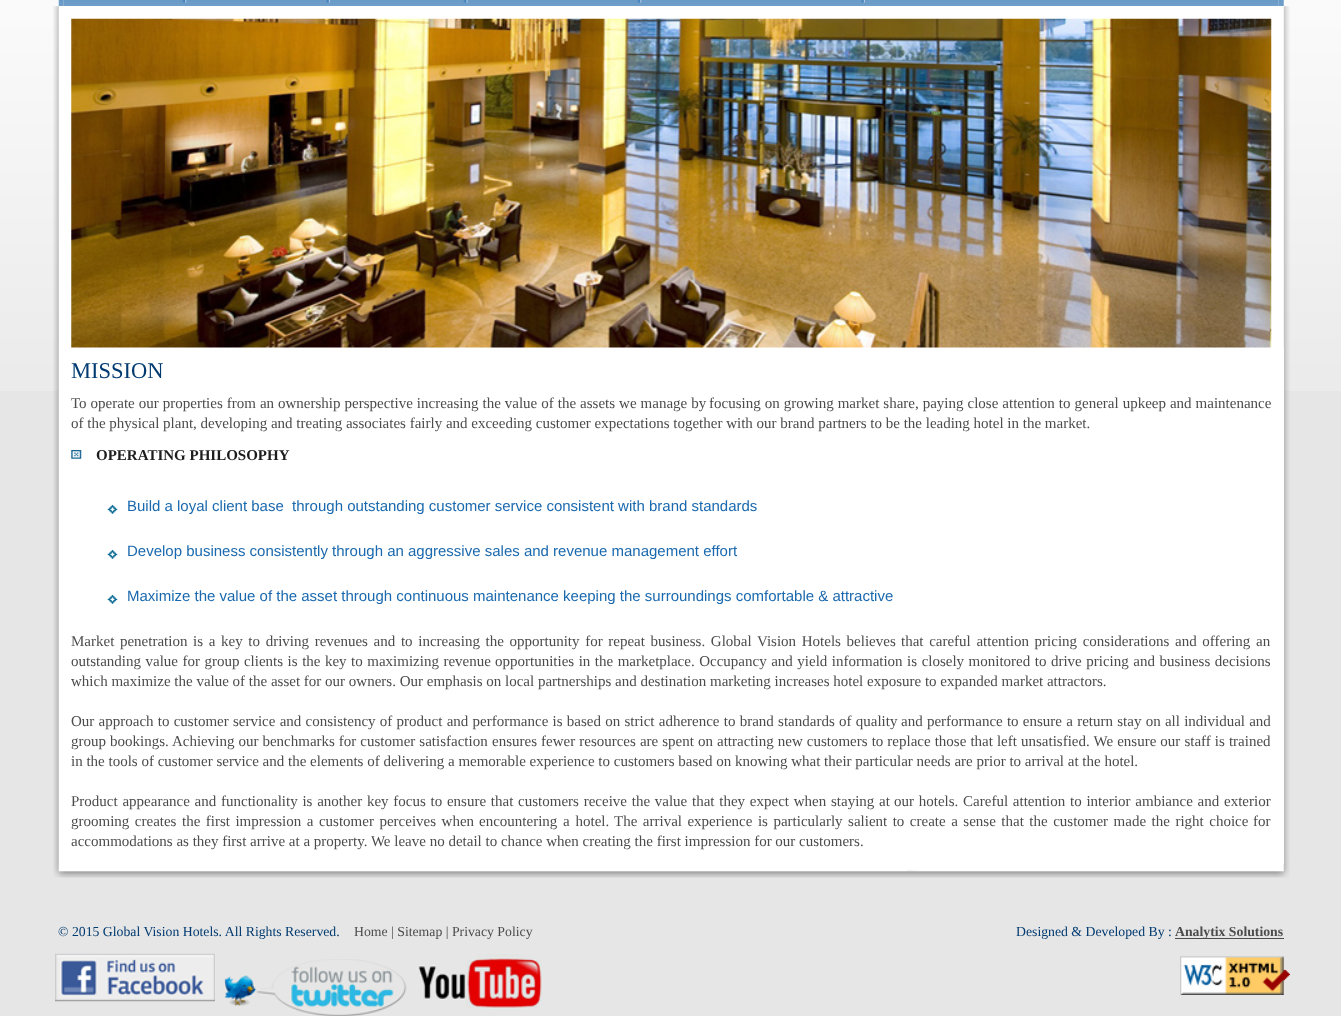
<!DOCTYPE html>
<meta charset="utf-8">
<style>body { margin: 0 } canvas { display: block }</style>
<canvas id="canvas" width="1341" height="1016"></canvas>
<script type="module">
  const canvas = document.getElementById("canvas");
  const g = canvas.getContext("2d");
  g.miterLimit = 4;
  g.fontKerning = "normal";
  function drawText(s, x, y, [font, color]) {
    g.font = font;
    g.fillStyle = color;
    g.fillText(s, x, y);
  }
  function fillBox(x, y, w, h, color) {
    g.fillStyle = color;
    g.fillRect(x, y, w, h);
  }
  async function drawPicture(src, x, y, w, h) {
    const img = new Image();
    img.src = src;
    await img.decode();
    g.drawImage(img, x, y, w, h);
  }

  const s1 = ["22.5px Liberation Serif", "#003A70"];
  const s2 = ["15px Liberation Serif", "#4C4C4C"];
  const s3 = ["bold 15px Liberation Serif", "#1D1D1D"];
  const s4 = ["15px Liberation Sans", "#1A69AE"];
  const s5 = ["13.75px Liberation Serif", "#003A70"];
  const s6 = ["13.75px Liberation Serif", "#4C4C4C"];
  const s7 = ["bold 13.75px Liberation Serif", "#4C4C4C"];

  fillBox(0, 0, 1341, 1016, "#E6E6E6");
  await drawPicture("pic1.png", 0, 0, 1341, 391);
  await drawPicture("pic2.png", 58, 0, 6, 7);
  await drawPicture("pic3.png", 63, 0, 1216, 6);
  await drawPicture("pic4.png", 182, 0, 5, 3);
  await drawPicture("pic5.png", 326, 0, 4, 3);
  await drawPicture("pic6.png", 463, 0, 5, 3);
  await drawPicture("pic4.png", 637, 0, 5, 3);
  await drawPicture("pic5.png", 861, 0, 4, 3);
  await drawPicture("pic7.png", 1278, 0, 6, 6);
  await drawPicture("pic8.png", 53, 6, 6, 342);
  fillBox(59, 6, 1225, 342, "#FFFFFF");
  await drawPicture("pic9.png", 71, 18, 1201, 330);
  await drawPicture("pic10.png", 1283, 6, 7, 342);
  await drawPicture("pic11.png", 53, 347, 1237, 517);
  fillBox(59, 348, 1225, 516, "#FFFFFF");
  drawText("MISSION", 71, 378, s1);
  g.wordSpacing = "0.25px";
  drawText("To operate our properties from an ownership perspective increasing the value of the assets we manage by", 71, 408, s2);
  drawText("focusing on growing market share, paying close attention to general upkeep and maintenance", 709, 408, s2);
  g.wordSpacing = "0px";
  drawText("of the physical plant, developing and treating associates fairly and exceeding customer expectations together with our brand partners to be the leading hotel in the market.", 71, 428, s2);
  await drawPicture("pic12.png", 71, 450, 11, 9);
  drawText("OPERATING PHILOSOPHY", 96, 460, s3);
  await drawPicture("pic13.png", 107, 504, 11, 10);
  drawText("Build a loyal client base  through outstanding customer service consistent with brand standards", 127, 511, s4);
  await drawPicture("pic13.png", 107, 549, 11, 10);
  drawText("Develop business consistently through an aggressive sales and revenue management effort", 127, 556, s4);
  await drawPicture("pic13.png", 107, 594, 11, 10);
  drawText("Maximize the value of the asset through continuous maintenance keeping the surroundings comfortable & attractive", 127, 601, s4);
  g.wordSpacing = "1.9px";
  drawText("Market penetration is a key to driving revenues and to increasing the opportunity for repeat business. Global Vision Hotels believes", 71, 646, s2);
  drawText("that careful attention pricing considerations and offering an", 901, 646, s2);
  g.wordSpacing = "0.75px";
  drawText("outstanding value for group clients is the key to maximizing revenue", 71, 666, s2);
  drawText("opportunities in the marketplace. Occupancy and yield information is closely monitored to drive pricing and business decisions", 495, 666, s2);
  g.wordSpacing = "0px";
  drawText("which maximize the value of the asset for our owners. Our emphasis on local partnerships and destination marketing increases hotel exposure to expanded market attractors.", 71, 686, s2);
  g.wordSpacing = "0.5px";
  drawText("Our approach to customer service and consistency of product and performance is based on strict adherence to brand standards of quality", 71, 726, s2);
  drawText("and performance to ensure a return stay on all individual and", 901, 726, s2);
  g.wordSpacing = "0.25px";
  drawText("group bookings. Achieving our benchmarks for customer satisfaction", 71, 746, s2);
  g.wordSpacing = "0.3px";
  drawText("ensures fewer resources are spent on attracting new customers to replace those that left unsatisfied. We ensure our staff is trained", 492, 746, s2);
  g.wordSpacing = "0px";
  drawText("in the tools of customer service and the elements of delivering a memorable experience to customers based on knowing what their particular needs are prior to arrival at the hotel.", 71, 766, s2);
  g.wordSpacing = "1px";
  drawText("Product appearance and functionality is another key focus to ensure that customers receive the value that they expect when staying at", 71, 806, s2);
  drawText("our hotels. Careful attention to interior ambiance and exterior", 894, 806, s2);
  g.wordSpacing = "1.75px";
  drawText("grooming creates the first impression a customer perceives when", 71, 826, s2);
  g.wordSpacing = "2px";
  drawText("encountering a hotel.", 479, 826, s2);
  g.wordSpacing = "1.75px";
  drawText("The arrival experience is particularly salient to create a sense that the customer made the right choice", 614, 826, s2);
  g.wordSpacing = "0px";
  drawText("for", 1253, 826, s2);
  drawText("accommodations as they first arrive at a property. We leave no detail to chance when creating the first impression for our customers.", 71, 846, s2);
  await drawPicture("pic14.png", 53, 863, 1237, 15);
  drawText("© 2015 Global Vision Hotels. All Rights Reserved.", 58, 936, s5);
  drawText("Home | Sitemap | Privacy Policy", 354, 936, s6);
  drawText("Designed & Developed By :", 1016, 936, s5);
  fillBox(1175, 938, 109, 1, "#4C4C4C");
  drawText("Analytix Solutions", 1175, 936, s7);
  await drawPicture("pic15.png", 55, 953, 160, 49);
  await drawPicture("pic16.png", 224, 959, 183, 57);
  await drawPicture("pic17.png", 417, 954, 126, 55);
  await drawPicture("pic18.png", 1180, 956, 110, 39);
</script>
